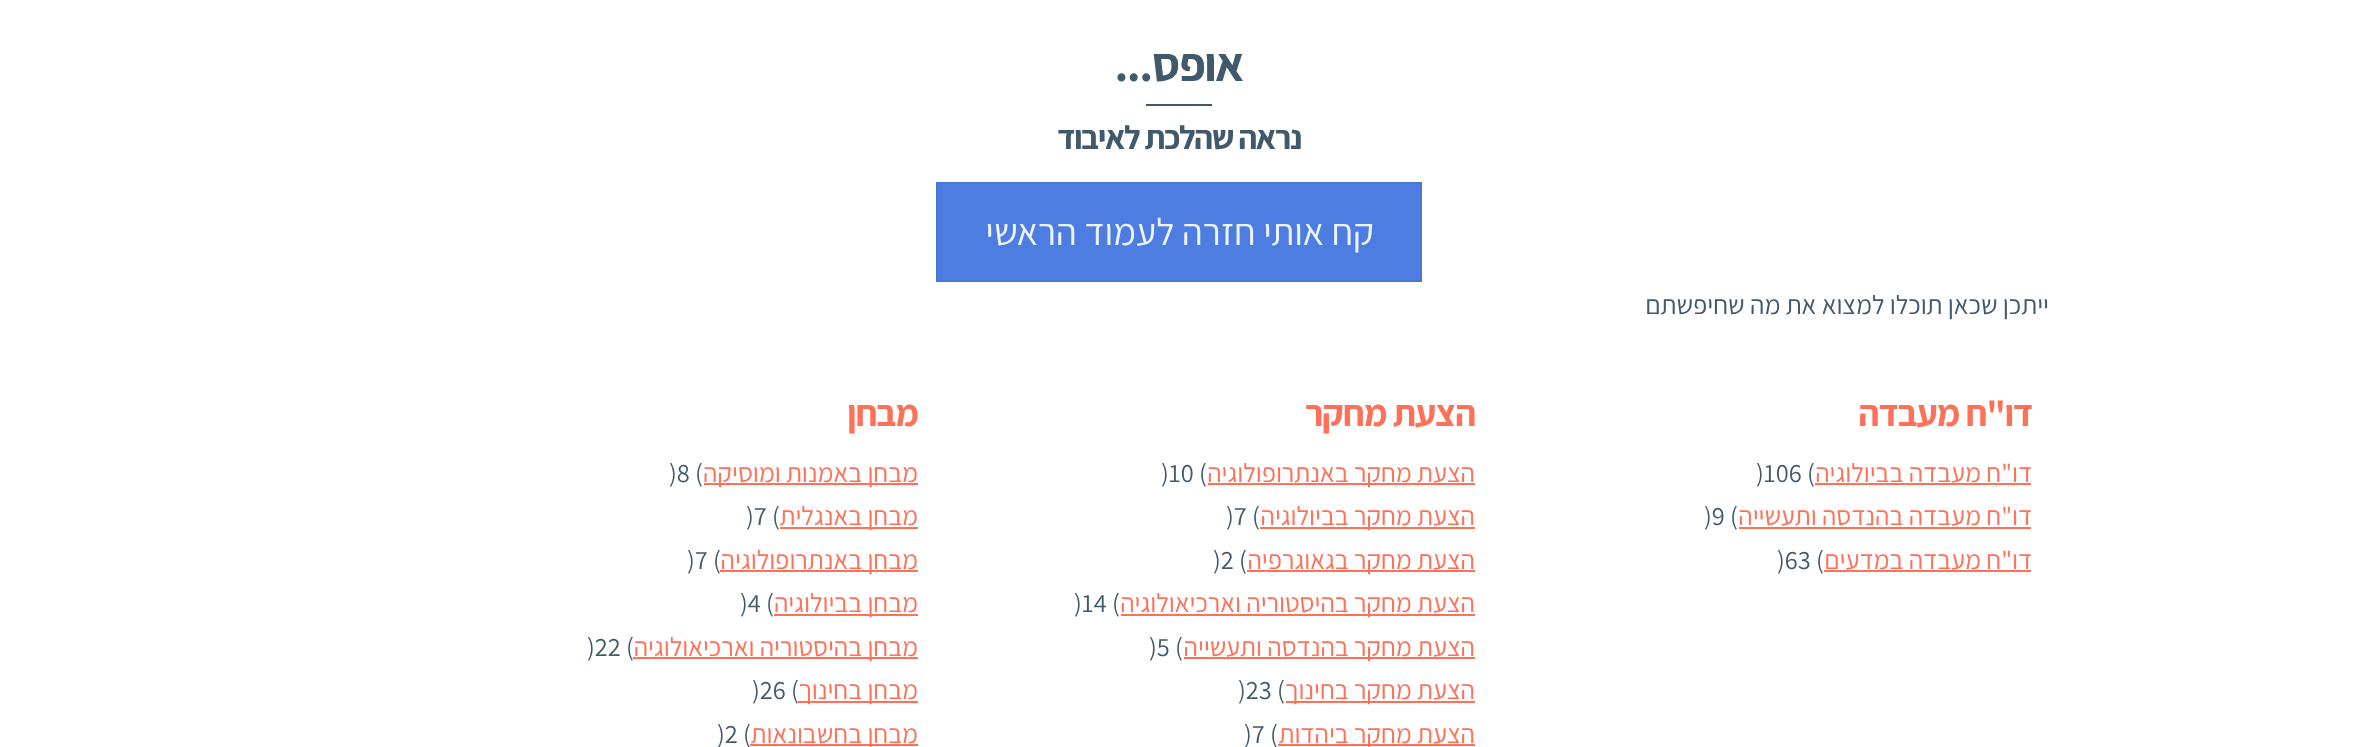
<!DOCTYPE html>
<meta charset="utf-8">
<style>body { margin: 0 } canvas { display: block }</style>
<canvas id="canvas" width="2357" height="747"></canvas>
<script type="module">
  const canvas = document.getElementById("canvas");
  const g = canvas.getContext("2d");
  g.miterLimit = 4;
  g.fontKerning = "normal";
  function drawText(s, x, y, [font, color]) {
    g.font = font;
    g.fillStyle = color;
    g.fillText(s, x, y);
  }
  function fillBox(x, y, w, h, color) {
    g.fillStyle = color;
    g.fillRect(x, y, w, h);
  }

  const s1 = ["bold 47.5px Assistant", "#40596B"];
  const s2 = ["bold 33.25px Assistant", "#40596B"];
  const s3 = ["38px Assistant", "#EDF3FF"];
  const s4 = ["26.4px Assistant", "#40596B"];
  const s5 = ["bold 37px Assistant", "#FF7058"];
  const s6 = ["26.4px Assistant", "#FF7058"];

  fillBox(0, 0, 2357, 747, "#FFFFFF");
  g.letterSpacing = "-1.4px";
  g.direction = "rtl";
  drawText("אופס...", 1243, 81, s1);
  fillBox(1146, 104, 66, 2, "#40596B");
  drawText("נראה שהלכת לאיבוד", 1301, 149, s2);
  g.fillStyle = "#4D7DE1";
  g.beginPath();
  g.rect(937, 183, 484, 98);
  g.fill();
  g.strokeStyle = "#4977D6";
  g.lineWidth = 2;
  g.stroke();
  g.letterSpacing = "0px";
  drawText("קח אותי חזרה לעמוד הראשי", 1374, 245, s3);
  drawText("ייתכן שכאן תוכלו למצוא את מה שחיפשתם", 2049, 314, s4);
  g.letterSpacing = "-1.1px";
  drawText("דו\"ח מעבדה", 2032, 426, s5);
  g.letterSpacing = "0px";
  drawText("דו\"ח מעבדה בביולוגיה", 2032, 482, s6);
  g.direction = "ltr";
  drawText(")106 (", 1756, 482, s4);
  fillBox(1815, 483, 216, 2, "#FF7058");
  g.direction = "rtl";
  drawText("דו\"ח מעבדה בהנדסה ותעשייה", 2032, 525, s6);
  g.direction = "ltr";
  drawText(")9 (", 1704, 525, s4);
  fillBox(1739, 527, 292, 2, "#FF7058");
  g.direction = "rtl";
  drawText("דו\"ח מעבדה במדעים", 2032, 569, s6);
  g.direction = "ltr";
  drawText(")63 (", 1777, 569, s4);
  fillBox(1824, 570, 207, 2, "#FF7058");
  g.letterSpacing = "-1.1px";
  g.direction = "rtl";
  drawText("הצעת מחקר", 1475, 426, s5);
  fillBox(1208, 483, 267, 2, "#FF7058");
  g.letterSpacing = "0px";
  drawText("הצעת מחקר באנתרופולוגיה", 1475, 482, s6);
  g.direction = "ltr";
  drawText(")10 (", 1161, 482, s4);
  fillBox(1260, 527, 215, 2, "#FF7058");
  g.direction = "rtl";
  drawText("הצעת מחקר בביולוגיה", 1475, 525, s6);
  g.direction = "ltr";
  drawText(")7 (", 1226, 525, s4);
  fillBox(1247, 570, 228, 2, "#FF7058");
  g.direction = "rtl";
  drawText("הצעת מחקר בגאוגרפיה", 1475, 569, s6);
  g.direction = "ltr";
  drawText(")2 (", 1213, 569, s4);
  fillBox(1121, 614, 354, 2, "#FF7058");
  g.direction = "rtl";
  drawText("הצעת מחקר בהיסטוריה וארכיאולוגיה", 1475, 612, s6);
  g.direction = "ltr";
  drawText(")14 (", 1074, 612, s4);
  fillBox(1184, 657, 291, 2, "#FF7058");
  g.direction = "rtl";
  drawText("הצעת מחקר בהנדסה ותעשייה", 1475, 656, s6);
  g.direction = "ltr";
  drawText(")5 (", 1149, 656, s4);
  fillBox(1286, 701, 189, 2, "#FF7058");
  g.direction = "rtl";
  drawText("הצעת מחקר בחינוך", 1475, 699, s6);
  g.direction = "ltr";
  drawText(")23 (", 1238, 699, s4);
  fillBox(1278, 744, 197, 2, "#FF7058");
  g.direction = "rtl";
  drawText("הצעת מחקר ביהדות", 1475, 743, s6);
  g.direction = "ltr";
  drawText(")7 (", 1244, 743, s4);
  g.letterSpacing = "-1.1px";
  g.direction = "rtl";
  drawText("מבחן", 918, 426, s5);
  fillBox(704, 483, 214, 2, "#FF7058");
  g.letterSpacing = "0px";
  drawText("מבחן באמנות ומוסיקה", 918, 482, s6);
  g.direction = "ltr";
  drawText(")8 (", 669, 482, s4);
  fillBox(780, 527, 138, 2, "#FF7058");
  g.direction = "rtl";
  drawText("מבחן באנגלית", 918, 525, s6);
  g.direction = "ltr";
  drawText(")7 (", 746, 525, s4);
  fillBox(720, 570, 198, 2, "#FF7058");
  g.direction = "rtl";
  drawText("מבחן באנתרופולוגיה", 918, 569, s6);
  g.direction = "ltr";
  drawText(")7 (", 687, 569, s4);
  fillBox(774, 614, 144, 2, "#FF7058");
  g.direction = "rtl";
  drawText("מבחן בביולוגיה", 918, 612, s6);
  g.direction = "ltr";
  drawText(")4 (", 740, 612, s4);
  fillBox(633, 657, 285, 2, "#FF7058");
  g.direction = "rtl";
  drawText("מבחן בהיסטוריה וארכיאולוגיה", 918, 656, s6);
  g.direction = "ltr";
  drawText(")22 (", 587, 656, s4);
  fillBox(798, 701, 120, 2, "#FF7058");
  g.direction = "rtl";
  drawText("מבחן בחינוך", 918, 699, s6);
  g.direction = "ltr";
  drawText(")26 (", 752, 699, s4);
  fillBox(750, 744, 168, 2, "#FF7058");
  g.direction = "rtl";
  drawText("מבחן בחשבונאות", 918, 743, s6);
  g.direction = "ltr";
  drawText(")2 (", 717, 743, s4);
</script>
